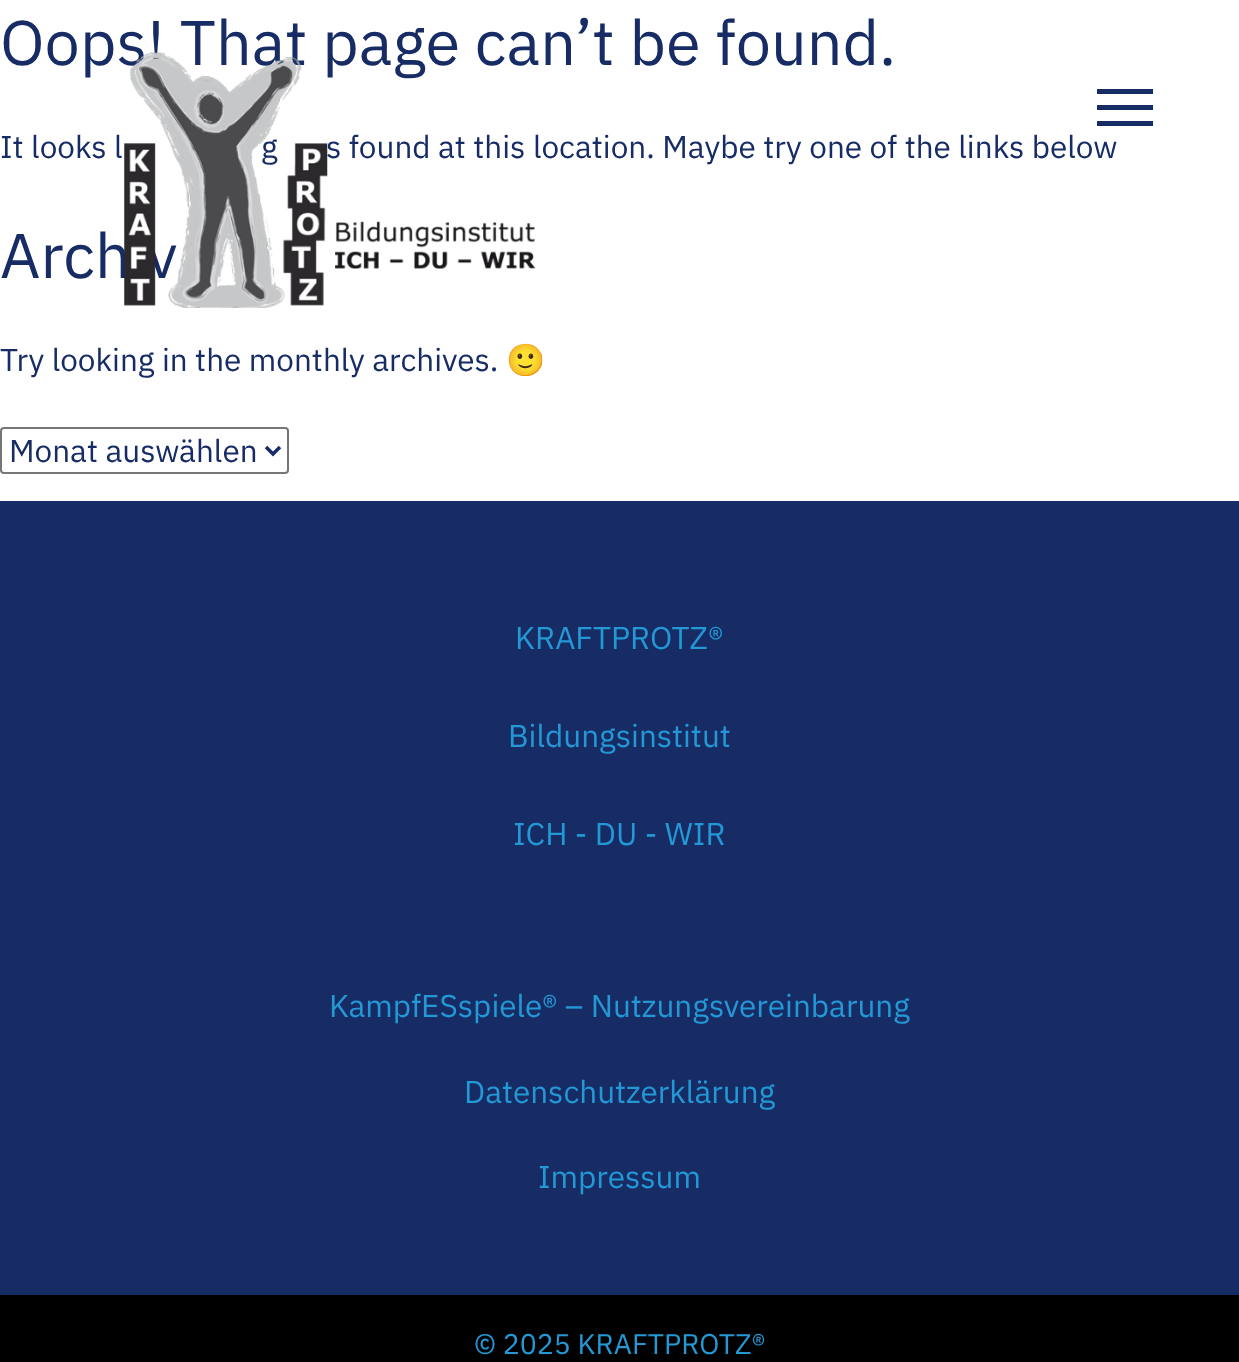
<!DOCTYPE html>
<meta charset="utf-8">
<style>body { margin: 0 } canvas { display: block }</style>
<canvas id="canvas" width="1239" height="1362"></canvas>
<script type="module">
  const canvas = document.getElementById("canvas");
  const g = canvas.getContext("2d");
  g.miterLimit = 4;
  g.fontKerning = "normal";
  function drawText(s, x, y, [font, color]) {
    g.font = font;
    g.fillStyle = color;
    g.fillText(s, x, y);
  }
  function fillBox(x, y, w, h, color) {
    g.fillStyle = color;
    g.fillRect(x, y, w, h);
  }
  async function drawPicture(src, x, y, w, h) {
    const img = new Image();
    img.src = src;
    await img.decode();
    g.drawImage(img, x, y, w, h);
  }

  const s1 = ["63px IBM Plex Sans", "#172C65"];
  const s2 = ["31.5px IBM Plex Sans", "#172C65"];
  const s3 = ["31.5px Noto Color Emoji", "#172C65"];
  const s4 = ["31.5px IBM Plex Sans", "#2398D5"];
  const s5 = ["28.4px IBM Plex Sans", "#2398D5"];

  fillBox(0, 0, 1239, 1362, "#FFFFFF");
  drawText("Oops! That page can’t be found.", 0, 65, s1);
  drawText("It looks l", 0, 158, s2);
  drawText("g", 261, 158, s2);
  drawText("s found at this location. Maybe try one of the links below", 326, 158, s2);
  drawText("Archiv", 0, 278, s1);
  drawText("Try looking in the monthly archives.", 0, 371, s2);
  drawText("🙂", 506, 371, s3);
  g.beginPath();
  g.roundRect(1, 428, 287, 45, 3);
  g.strokeStyle = "#767676";
  g.lineWidth = 2;
  g.stroke();
  g.beginPath();
  g.moveTo(266, 447);
  g.lineTo(273, 454);
  g.lineTo(280, 447);
  g.strokeStyle = "#172C65";
  g.lineWidth = 3.5;
  g.stroke();
  drawText("Monat auswählen", 9, 462, s2);
  await drawPicture("pic1.png", 124, 52, 412, 256);
  fillBox(1090, 89, 70, 5, "#172C65");
  fillBox(1153, 89, 7, 5, "#FFFFFF");
  fillBox(1090, 89, 7, 5, "#FFFFFF");
  fillBox(1090, 105, 70, 5, "#172C65");
  fillBox(1153, 105, 7, 5, "#FFFFFF");
  fillBox(1090, 105, 7, 5, "#FFFFFF");
  fillBox(1090, 121, 70, 5, "#172C65");
  fillBox(1153, 121, 7, 5, "#FFFFFF");
  fillBox(1090, 121, 7, 5, "#FFFFFF");
  fillBox(0, 501, 1239, 794, "#172C65");
  drawText("KRAFTPROTZ®", 515, 649, s4);
  drawText("Bildungsinstitut", 508, 747, s4);
  drawText("ICH - DU - WIR", 513, 845, s4);
  drawText("KampfESspiele® – Nutzungsvereinbarung", 329, 1017, s4);
  drawText("Datenschutzerklärung", 464, 1103, s4);
  drawText("Impressum", 538, 1188, s4);
  fillBox(0, 1295, 1239, 67, "#000000");
  drawText("© 2025 KRAFTPROTZ®", 474, 1354, s5);
</script>
